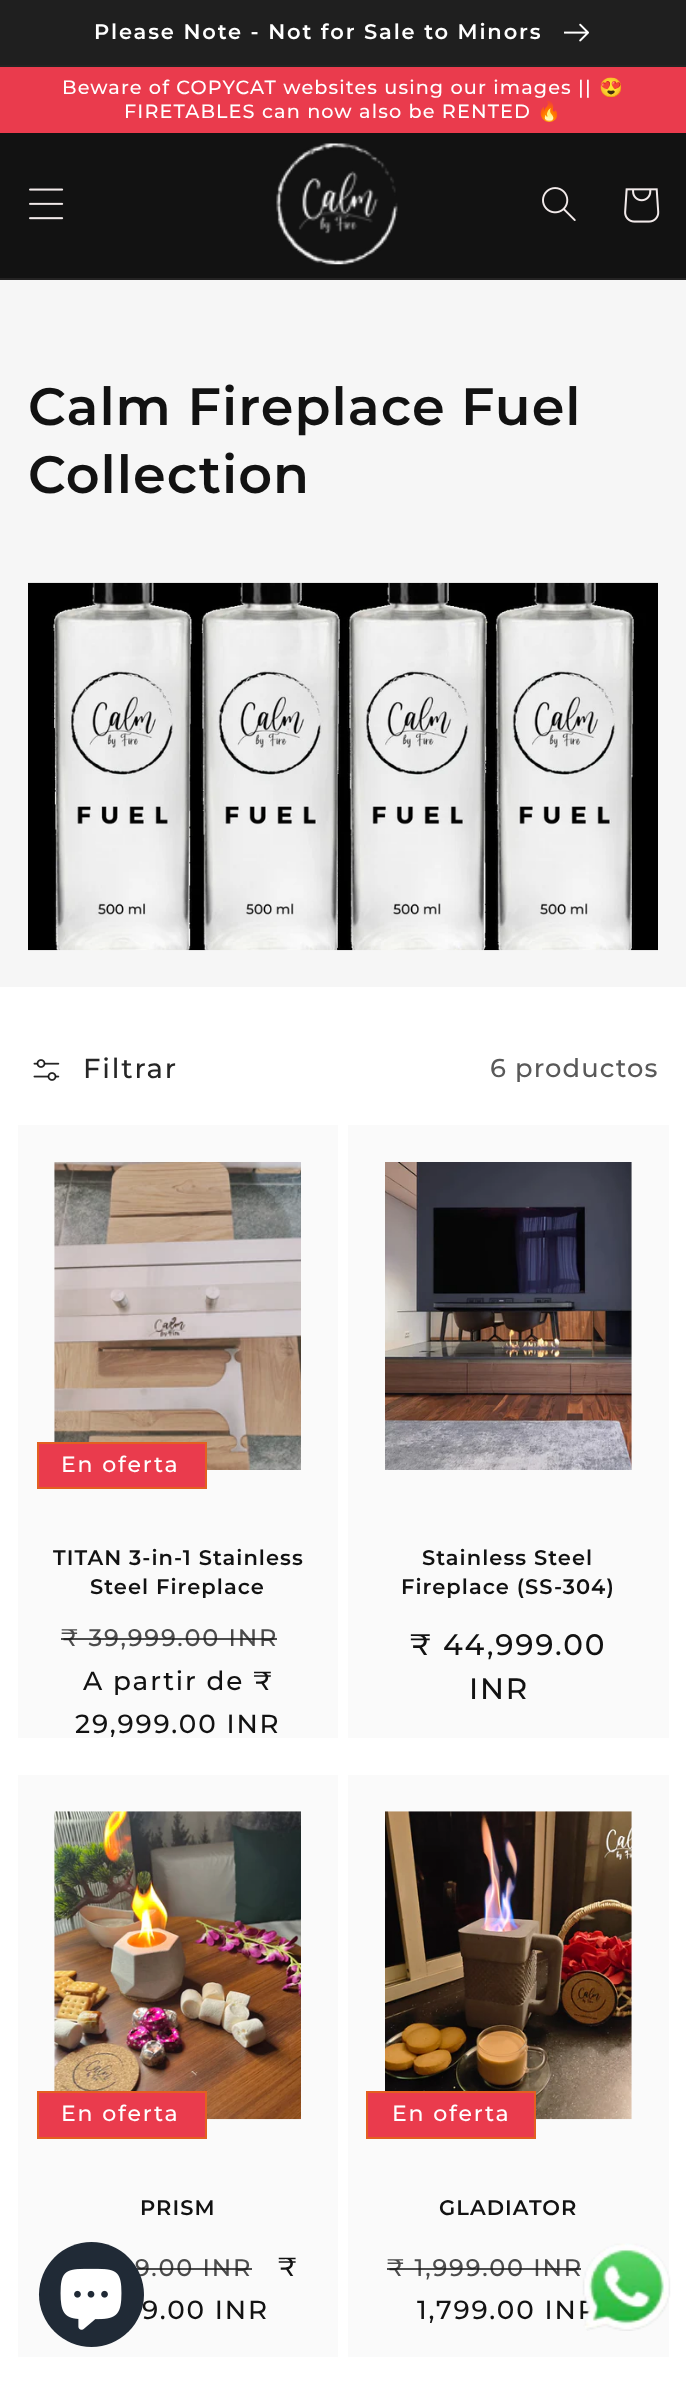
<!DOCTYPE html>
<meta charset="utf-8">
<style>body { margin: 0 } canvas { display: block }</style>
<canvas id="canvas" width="686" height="2383"></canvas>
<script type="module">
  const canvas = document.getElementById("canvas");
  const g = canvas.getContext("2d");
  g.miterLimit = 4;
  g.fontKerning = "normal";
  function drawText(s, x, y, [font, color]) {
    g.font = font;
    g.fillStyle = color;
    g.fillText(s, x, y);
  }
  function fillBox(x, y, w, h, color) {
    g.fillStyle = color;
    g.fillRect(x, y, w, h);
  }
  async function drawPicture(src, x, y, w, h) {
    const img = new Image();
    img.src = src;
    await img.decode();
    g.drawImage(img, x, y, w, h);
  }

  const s1 = ["600 21px Montserrat", "#FFFFFF"];
  const s2 = ["500 19.25px Montserrat", "#FFFFFF"];
  const s3 = ["19.25px Noto Color Emoji", "#FFFFFF"];
  const s4 = ["600 52.5px Montserrat", "#121212"];
  const s5 = ["500 27.5px Montserrat", "#262626"];
  const s6 = ["500 25.75px Montserrat", "#595959"];
  const s7 = ["500 22px Montserrat", "#FFFFFF"];
  const s8 = ["600 21px Montserrat", "#121212"];
  const s9 = ["500 24px Montserrat", "#4C4C4C"];
  const s10 = ["500 26.25px Montserrat", "#121212"];
  const s11 = ["500 29.5px Montserrat", "#121212"];

  fillBox(0, 0, 686, 2383, "#FFFFFF");
  fillBox(0, 65, 686, 2, "#242323");
  fillBox(0, 0, 686, 65, "#1F1F1F");
  g.letterSpacing = "1.85px";
  drawText("Please Note - Not for Sale to Minors", 94, 39, s1);
  await drawPicture("pic1.png", 564, 23, 25, 19);
  fillBox(0, 67, 686, 66, "#EA3B4D");
  g.letterSpacing = "1.1px";
  drawText("Beware of COPYCAT websites using our images ||", 62, 94, s2);
  drawText("😍", 599, 94, s3);
  drawText("FIRETABLES can now also be RENTED", 124, 118, s2);
  drawText("🔥", 537, 118, s3);
  fillBox(0, 133, 686, 145, "#121212");
  fillBox(0, 278, 686, 2, "#242323");
  await drawPicture("pic2.png", 29, 188, 35, 32);
  await drawPicture("pic3.png", 276, 143, 122, 122);
  await drawPicture("pic4.png", 542, 187, 34, 34);
  await drawPicture("pic5.png", 624, 188, 36, 35);
  fillBox(0, 280, 686, 707, "#F6F6F6");
  g.letterSpacing = "1.05px";
  drawText("Calm Fireplace Fuel", 28, 425, s4);
  drawText("Collection", 28, 493, s4);
  await drawPicture("pic6.png", 28, 582, 630, 369);
  await drawPicture("pic7.png", 33, 1059, 27, 22);
  g.letterSpacing = "1.85px";
  drawText("Filtrar", 83, 1078, s5);
  g.letterSpacing = "1.1px";
  drawText("6 productos", 490, 1077, s6);
  fillBox(18, 1125, 320, 613, "#FAFAFA");
  await drawPicture("pic8.png", 54, 1162, 247, 308);
  g.fillStyle = "#EA3B4D";
  g.beginPath();
  g.rect(38, 1443, 168, 45);
  g.fill();
  g.strokeStyle = "#E26020";
  g.lineWidth = 2;
  g.stroke();
  g.letterSpacing = "1.85px";
  drawText("En oferta", 61, 1472, s7);
  g.letterSpacing = "1.05px";
  drawText("TITAN 3-in-1 Stainless", 53, 1565, s8);
  drawText("Steel Fireplace", 90, 1594, s8);
  g.letterSpacing = "1.85px";
  drawText("₹ 39,999.00 INR", 61, 1646, s9);
  fillBox(61, 1638, 216, 2, "rgba(18, 18, 18, 0.75)");
  drawText("A partir de ₹", 83, 1690, s10);
  drawText("29,999.00 INR", 75, 1733, s10);
  fillBox(348, 1125, 321, 613, "#FAFAFA");
  await drawPicture("pic9.png", 385, 1162, 247, 308);
  g.letterSpacing = "1.05px";
  drawText("Stainless Steel", 422, 1565, s8);
  drawText("Fireplace (SS-304)", 401, 1594, s8);
  g.letterSpacing = "1.85px";
  drawText("₹ 44,999.00", 410, 1655, s11);
  drawText("INR", 469, 1699, s11);
  fillBox(18, 1775, 320, 582, "#FAFAFA");
  await drawPicture("pic10.png", 54, 1811, 247, 309);
  g.fillStyle = "#EA3B4D";
  g.beginPath();
  g.rect(38, 2092, 168, 46);
  g.fill();
  g.stroke();
  drawText("En oferta", 61, 2121, s7);
  g.letterSpacing = "1.05px";
  drawText("PRISM", 140, 2215, s8);
  g.letterSpacing = "1.85px";
  drawText("9.00 INR", 135, 2276, s9);
  fillBox(136, 2268, 116, 2, "rgba(18, 18, 18, 0.75)");
  drawText("₹", 278, 2276, s10);
  drawText("9.00 INR", 142, 2319, s10);
  fillBox(348, 1775, 321, 582, "#FAFAFA");
  await drawPicture("pic11.png", 385, 1811, 247, 309);
  g.fillStyle = "#EA3B4D";
  g.beginPath();
  g.rect(367, 2092, 168, 46);
  g.fill();
  g.stroke();
  drawText("En oferta", 392, 2121, s7);
  g.letterSpacing = "1.05px";
  drawText("GLADIATOR", 439, 2215, s8);
  g.letterSpacing = "1.85px";
  drawText("₹ 1,999.00 INR", 387, 2276, s9);
  fillBox(387, 2268, 194, 2, "rgba(18, 18, 18, 0.75)");
  drawText("1,799.00 INR", 417, 2319, s10);
  g.fillStyle = "#202A36";
  g.beginPath();
  g.arc(91.5, 2294.5, 52.5, 0, Math.PI * 2);
  g.fill();
  await drawPicture("pic12.png", 60, 2268, 62, 62);
  await drawPicture("pic13.png", 582, 2243, 89, 88);
</script>
